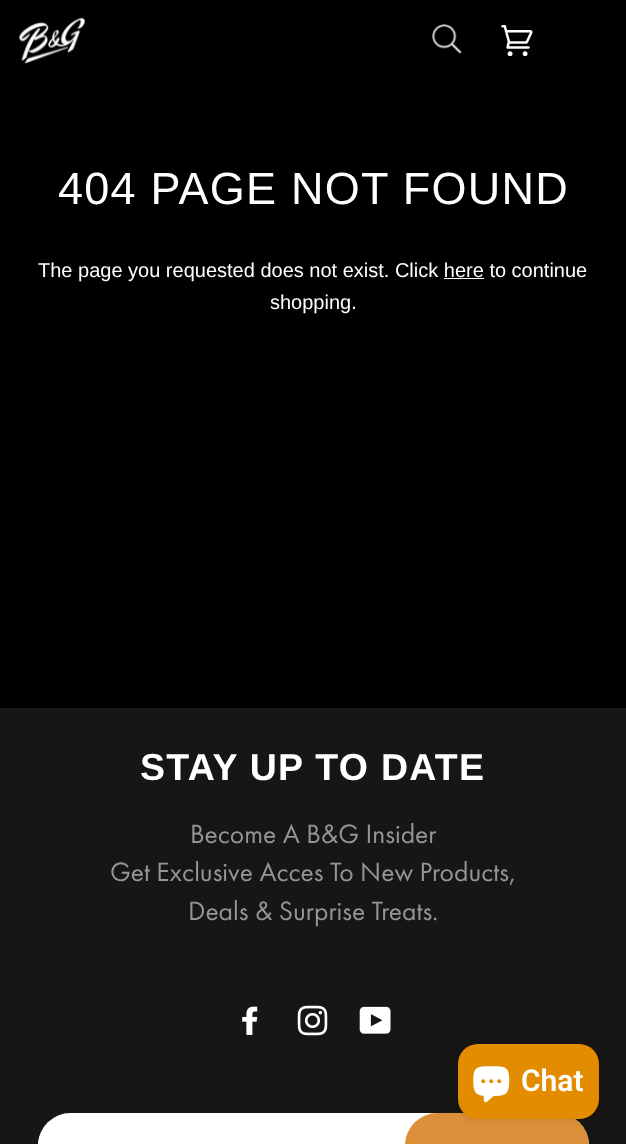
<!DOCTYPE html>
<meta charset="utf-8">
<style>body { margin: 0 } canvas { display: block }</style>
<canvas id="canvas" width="626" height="1144"></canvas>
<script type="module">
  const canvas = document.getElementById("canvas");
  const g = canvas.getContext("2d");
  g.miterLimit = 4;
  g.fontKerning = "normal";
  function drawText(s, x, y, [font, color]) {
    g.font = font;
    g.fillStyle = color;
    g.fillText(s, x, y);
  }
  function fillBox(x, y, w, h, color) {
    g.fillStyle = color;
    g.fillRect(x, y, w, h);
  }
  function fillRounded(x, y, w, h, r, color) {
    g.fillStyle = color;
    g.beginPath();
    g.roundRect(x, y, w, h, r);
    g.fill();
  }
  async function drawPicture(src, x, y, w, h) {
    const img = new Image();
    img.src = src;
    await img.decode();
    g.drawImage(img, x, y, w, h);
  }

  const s1 = ["45px Liberation Sans", "#FFFFFF"];
  const s2 = ["20px Liberation Sans", "#FFFFFF"];
  const s3 = ["bold 37.5px Liberation Sans", "#FFFFFF"];
  const s4 = ["27.5px Futura PT", "#959595"];
  const s5 = ["600 30px Roboto", "#FFFFFF"];

  fillBox(0, 0, 626, 1144, "#000000");
  await drawPicture("pic1.png", 18, 17, 67, 47);
  await drawPicture("pic2.png", 432, 24, 30, 30);
  await drawPicture("pic3.png", 501, 25, 32, 31);
  g.letterSpacing = "1.25px";
  drawText("404 PAGE NOT FOUND", 58, 204, s1);
  g.letterSpacing = "0px";
  drawText("The page you requested does not exist. Click here to continue", 38, 277, s2);
  fillBox(444, 278, 40, 1, "#FFFFFF");
  drawText("shopping.", 270, 309, s2);
  fillBox(0, 708, 626, 436, "#171615");
  g.letterSpacing = "1.25px";
  drawText("STAY UP TO DATE", 140, 780, s3);
  g.letterSpacing = "0px";
  drawText("Become A B&G Insider", 190, 843, s4);
  drawText("Get Exclusive Acces To New Products,", 110, 881, s4);
  drawText("Deals & Surprise Treats.", 188, 920, s4);
  await drawPicture("pic4.png", 242, 1006, 16, 29);
  await drawPicture("pic5.png", 297, 1005, 31, 31);
  await drawPicture("pic6.png", 359, 1006, 32, 28);
  fillRounded(38, 1113, 551, 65, 33.5, "#FFFFFF");
  g.beginPath();
  g.moveTo(70, 1115);
  g.lineTo(405, 1115);
  g.lineTo(405, 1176);
  g.lineTo(70, 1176);
  g.bezierCurveTo(52.5, 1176, 38, 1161.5, 38, 1144);
  g.lineTo(38, 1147);
  g.bezierCurveTo(38, 1129.5, 52.5, 1115, 70, 1115);
  g.closePath();
  g.fill();
  fillRounded(405, 1113, 184, 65, 33.5, "#DD8E39");
  g.fillStyle = "rgba(0, 0, 0, 0.15)";
  g.filter = "blur(3px)";
  g.beginPath();
  g.roundRect(458, 1044, 141, 75, 20);
  g.fill();
  g.filter = "none";
  fillRounded(458, 1044, 141, 75, 20, "#E38C00");
  await drawPicture("pic7.png", 473, 1066, 37, 37);
  drawText("Chat", 521, 1091, s5);
</script>
